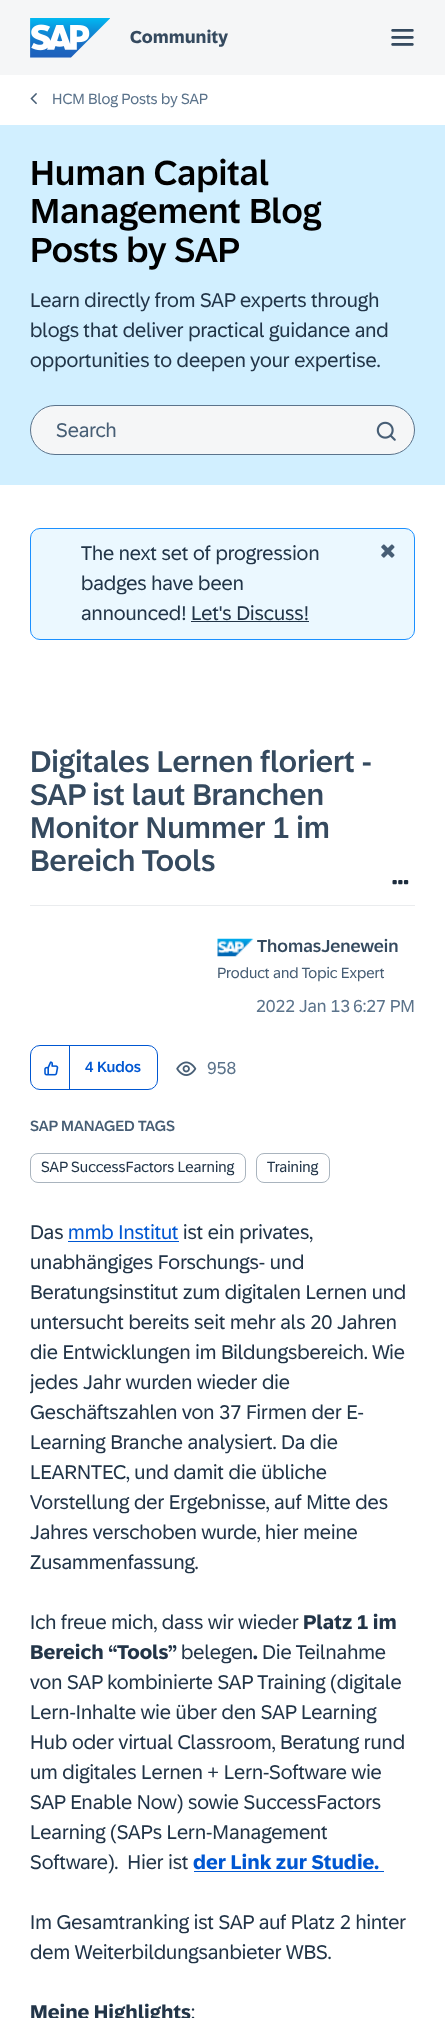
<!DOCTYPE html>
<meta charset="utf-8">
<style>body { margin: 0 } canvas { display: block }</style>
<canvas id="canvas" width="445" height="2018"></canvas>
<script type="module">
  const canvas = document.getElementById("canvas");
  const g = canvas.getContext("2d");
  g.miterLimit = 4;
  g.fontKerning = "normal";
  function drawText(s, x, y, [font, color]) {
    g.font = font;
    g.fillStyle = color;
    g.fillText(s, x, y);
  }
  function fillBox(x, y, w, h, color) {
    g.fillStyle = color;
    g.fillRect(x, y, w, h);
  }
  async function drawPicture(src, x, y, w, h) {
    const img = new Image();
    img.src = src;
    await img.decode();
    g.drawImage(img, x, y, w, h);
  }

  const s1 = ["bold 17.5px '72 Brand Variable'", "#354A5F"];
  const s2 = ["15px '72 Brand Variable'", "#5B738B"];
  const s3 = ["500 35px '72 Brand Variable'", "#000000"];
  const s4 = ["20px '72 Brand Variable'", "#223548"];
  const s5 = ["20px '72 Brand Variable'", "#475E75"];
  const s6 = ["500 30px '72 Brand Variable'", "#354A5F"];
  const s7 = ["500 17.5px '72 Brand Variable'", "#354A5F"];
  const s8 = ["15px '72 Brand Variable'", "#475E75"];
  const s9 = ["17.5px '72 Brand Variable'", "#5B738B"];
  const s10 = ["500 15px '72 Brand Variable'", "#0057D2"];
  const s11 = ["500 15px '72 Brand Variable'", "#475E75"];
  const s12 = ["15px '72 Brand Variable'", "#223548"];
  const s13 = ["20px '72 Brand Variable'", "#0057D2"];
  const s14 = ["bold 20px '72 Brand Variable'", "#223548"];
  const s15 = ["bold 20px '72 Brand Variable'", "#0057D2"];

  fillBox(0, 0, 445, 2018, "#FFFFFF");
  fillBox(0, 0, 445, 75, "#F5F6F7");
  await drawPicture("pic1.png", 30, 18, 80, 40);
  drawText("Community", 130, 43, s1);
  await drawPicture("pic2.png", 391, 29, 23, 17);
  await drawPicture("pic3.png", 30, 93, 7, 12);
  drawText("HCM Blog Posts by SAP", 52, 104, s2);
  fillBox(0, 125, 445, 360, "#D1EFFF");
  drawText("Human Capital", 30, 185, s3);
  drawText("Management Blog", 30, 223, s3);
  drawText("Posts by SAP", 30, 262, s3);
  drawText("Learn directly from SAP experts through", 30, 307, s4);
  drawText("blogs that deliver practical guidance and", 30, 337, s4);
  drawText("opportunities to deepen your expertise.", 30, 367, s4);
  g.fillStyle = "#F5F6F7";
  g.beginPath();
  g.roundRect(30.5, 405.5, 384, 49, 24.5);
  g.fill();
  g.strokeStyle = "#5B738B";
  g.stroke();
  drawText("Search", 56, 437, s5);
  await drawPicture("pic4.png", 376, 421, 20, 20);
  g.fillStyle = "#EBF8FF";
  g.beginPath();
  g.roundRect(30.5, 528.5, 384, 111, 9.5);
  g.fill();
  g.strokeStyle = "#1B90FF";
  g.stroke();
  drawText("The next set of progression", 81, 560, s4);
  drawText("badges have been", 81, 590, s4);
  drawText("announced! Let's Discuss!", 81, 620, s4);
  fillBox(191, 621, 118, 1, "#223548");
  await drawPicture("pic5.png", 381, 544, 14, 14);
  fillBox(30, 905, 385, 1, "#EAECEE");
  drawText("Digitales Lernen floriert -", 30, 772, s6);
  drawText("SAP ist laut Branchen", 30, 805, s6);
  drawText("Monitor Nummer 1 im", 30, 838, s6);
  drawText("Bereich Tools", 30, 871, s6);
  await drawPicture("pic6.png", 217, 938, 37, 19);
  drawText("ThomasJenewein", 257, 952, s7);
  drawText("Product and Topic Expert", 217, 978, s8);
  await drawPicture("pic7.png", 392, 880, 17, 5);
  drawText("2022 Jan 13", 256, 1012, s9);
  drawText("6:27 PM", 353, 1012, s9);
  g.beginPath();
  g.roundRect(30.5, 1045.5, 127, 44, 9.5);
  g.strokeStyle = "#0057D2";
  g.stroke();
  fillBox(69, 1046, 1, 44, "#0057D2");
  await drawPicture("pic8.png", 44, 1061, 15, 15);
  drawText("4 Kudos", 85, 1072, s10);
  await drawPicture("pic9.png", 176, 1061, 21, 15);
  drawText("958", 207, 1074, s9);
  drawText("SAP MANAGED TAGS", 30, 1131, s11);
  g.beginPath();
  g.roundRect(30.5, 1153.5, 215, 29, 7.5);
  g.strokeStyle = "#A9B4BE";
  g.stroke();
  drawText("SAP SuccessFactors Learning", 41, 1172, s12);
  g.beginPath();
  g.roundRect(256.5, 1153.5, 73, 29, 7.5);
  g.stroke();
  drawText("Training", 267, 1172, s12);
  drawText("Das", 30, 1239, s4);
  drawText("mmb Institut", 68, 1239, s13);
  fillBox(68, 1241, 111, 1, "#0057D2");
  drawText("ist ein privates,", 183, 1239, s4);
  drawText("unabhängiges Forschungs- und", 30, 1269, s4);
  drawText("Beratungsinstitut zum digitalen Lernen und", 30, 1299, s4);
  drawText("untersucht bereits seit mehr als 20 Jahren", 30, 1329, s4);
  drawText("die Entwicklungen im Bildungsbereich. Wie", 30, 1359, s4);
  g.save();
  g.beginPath();
  g.rect(30, 1204, 385, 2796);
  g.clip();
  drawText("jedes Jahr wurden wieder die", 30, 1389, s4);
  g.restore();
  drawText("Geschäftszahlen von 37 Firmen der E-", 30, 1419, s4);
  drawText("Learning Branche analysiert. Da die", 30, 1449, s4);
  drawText("LEARNTEC, und damit die übliche", 30, 1479, s4);
  drawText("Vorstellung der Ergebnisse, auf Mitte des", 30, 1509, s4);
  drawText("Jahres verschoben wurde, hier meine", 30, 1539, s4);
  drawText("Zusammenfassung.", 30, 1569, s4);
  drawText("Ich freue mich, dass wir wieder", 30, 1629, s4);
  drawText("Platz 1 im", 303, 1629, s14);
  drawText("Bereich “Tools”", 30, 1659, s14);
  drawText("belegen", 181, 1659, s4);
  drawText(".", 253, 1659, s14);
  drawText("Die Teilnahme", 262, 1659, s4);
  drawText("von SAP kombinierte SAP Training (digitale", 30, 1689, s4);
  drawText("Lern-Inhalte wie über den SAP Learning", 30, 1719, s4);
  drawText("Hub oder virtual Classroom, Beratung rund", 30, 1749, s4);
  drawText("um digitales Lernen + Lern-Software wie", 30, 1779, s4);
  drawText("SAP Enable Now) sowie SuccessFactors", 30, 1809, s4);
  drawText("Learning (SAPs Lern-Management", 30, 1839, s4);
  drawText("Software).  Hier ist", 30, 1869, s4);
  drawText("der Link zur Studie.", 193, 1869, s15);
  fillBox(194, 1871, 190, 1, "#0057D2");
  drawText("Im Gesamtranking ist SAP auf Platz 2 hinter", 30, 1929, s4);
  drawText("dem Weiterbildungsanbieter WBS.", 30, 1959, s4);
  drawText("Meine Highlights", 30, 2019, s14);
  drawText(":", 191, 2019, s4);
</script>
